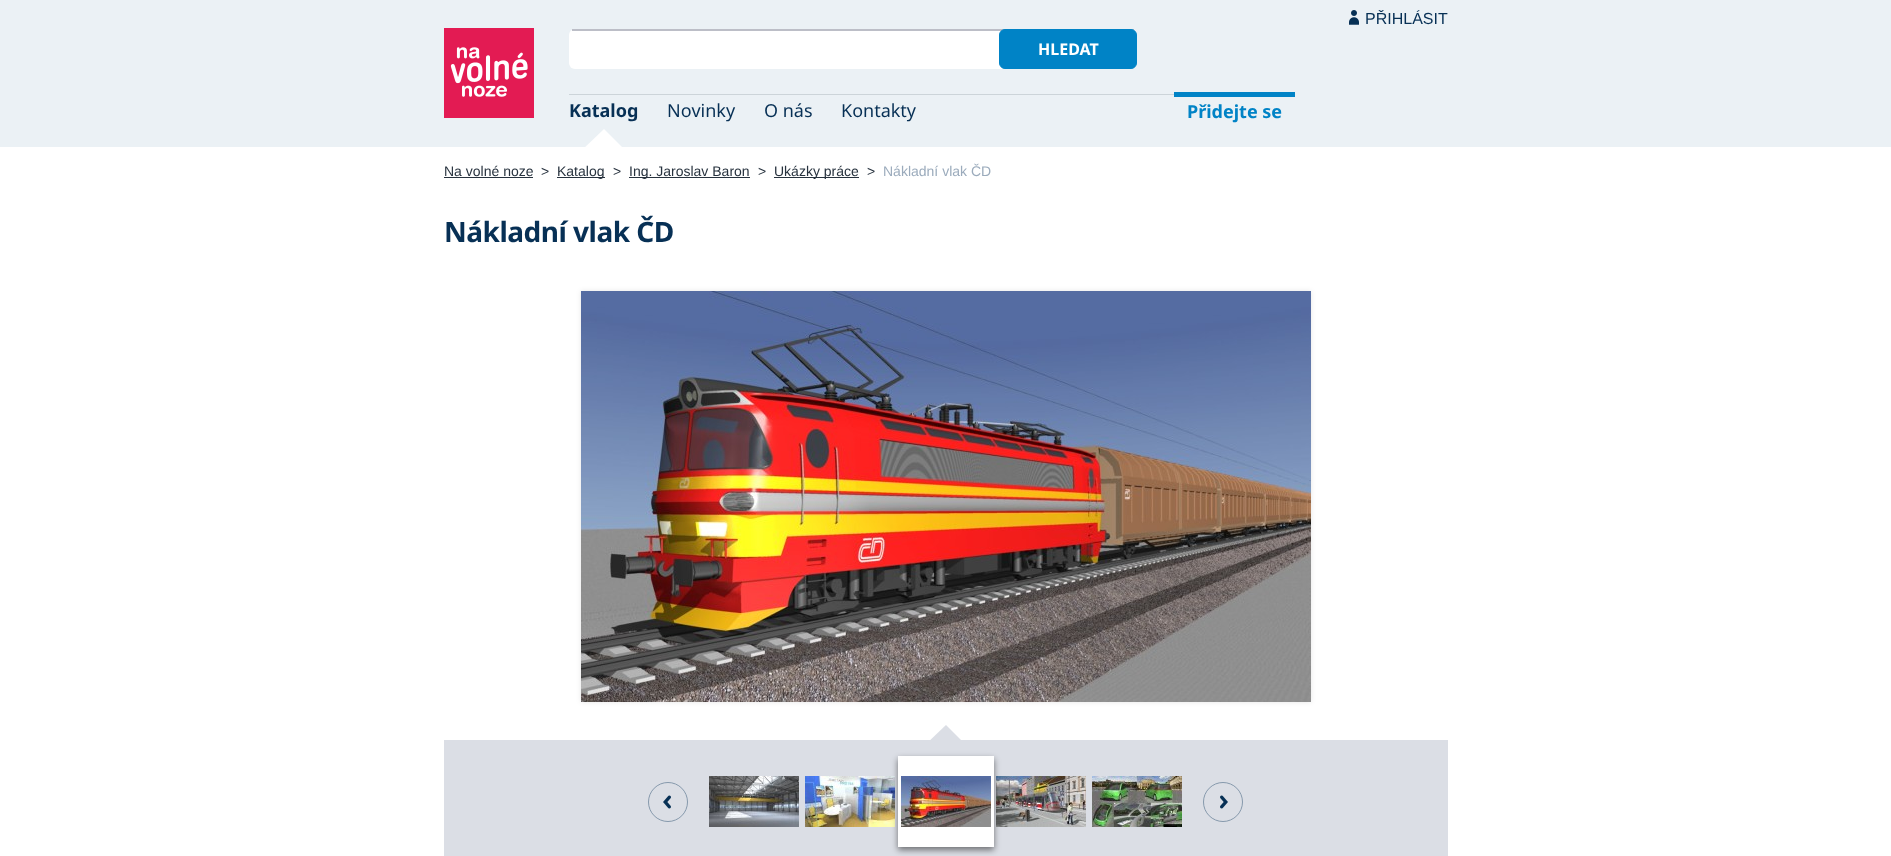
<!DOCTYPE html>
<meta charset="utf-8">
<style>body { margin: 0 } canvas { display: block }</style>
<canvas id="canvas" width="1891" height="856"></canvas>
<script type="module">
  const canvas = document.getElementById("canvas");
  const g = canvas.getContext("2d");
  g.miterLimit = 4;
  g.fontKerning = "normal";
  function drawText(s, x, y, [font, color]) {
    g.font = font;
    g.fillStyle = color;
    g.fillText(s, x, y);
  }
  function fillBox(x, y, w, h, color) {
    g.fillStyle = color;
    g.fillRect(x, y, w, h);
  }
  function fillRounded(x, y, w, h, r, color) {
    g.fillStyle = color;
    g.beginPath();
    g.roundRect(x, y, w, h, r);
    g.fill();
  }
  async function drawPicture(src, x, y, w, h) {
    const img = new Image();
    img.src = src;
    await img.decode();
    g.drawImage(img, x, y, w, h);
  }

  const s1 = ["16px Liberation Sans", "#073055"];
  const s2 = ["bold 18px Noto Sans", "#073055"];
  const s3 = ["18px Noto Sans", "#073055"];
  const s4 = ["bold 18px Noto Sans", "#0083C6"];
  const s5 = ["bold 16px Noto Sans", "#FFFFFF"];
  const s6 = ["14px Liberation Sans", "#27323E"];
  const s7 = ["14px Liberation Sans", "#9BABBC"];
  const s8 = ["bold 28px Noto Sans", "#073055"];

  fillBox(0, 0, 1891, 856, "#FFFFFF");
  fillBox(0, 0, 1891, 147, "#EBF1F5");
  fillBox(444, 28, 90, 90, "#E31B53");
  await drawPicture("pic1.png", 450, 47, 78, 50);
  await drawPicture("pic2.png", 1349, 10, 10, 15);
  drawText("PŘIHLÁSIT", 1365, 24, s1);
  fillBox(569, 94, 605, 1, "#CCD4D9");
  drawText("Katalog", 569, 117, s2);
  g.save();
  g.beginPath();
  g.rect(551, 95, 98, 52);
  g.clip();
  g.fillStyle = "#FFFFFF";
  g.beginPath();
  g.moveTo(604, 129);
  g.lineTo(626, 151);
  g.lineTo(604, 174);
  g.lineTo(581, 151);
  g.closePath();
  g.fill();
  g.restore();
  drawText("Novinky", 667, 117, s3);
  drawText("O nás", 764, 117, s3);
  drawText("Kontakty", 841, 117, s3);
  fillBox(1174, 92, 121, 5, "#0083C6");
  drawText("Přidejte se", 1187, 118, s4);
  fillRounded(569, 29, 568, 40, 6, "#FFFFFF");
  fillBox(572, 29, 562, 2, "#BCBEC7");
  g.fillStyle = "#0083C6";
  g.beginPath();
  g.roundRect(999.5, 29.5, 137, 39, 5.5);
  g.fill();
  g.strokeStyle = "#0083C6";
  g.stroke();
  drawText("HLEDAT", 1038, 55, s5);
  drawText("Na volné noze", 444, 176, s6);
  fillBox(444, 177, 89, 1, "#27323E");
  drawText(">", 541, 176, s6);
  fillBox(557, 177, 48, 1, "#27323E");
  drawText("Katalog", 557, 176, s6);
  drawText(">", 613, 176, s6);
  fillBox(629, 177, 121, 1, "#27323E");
  drawText("Ing. Jaroslav Baron", 629, 176, s6);
  drawText(">", 758, 176, s6);
  fillBox(774, 177, 85, 1, "#27323E");
  drawText("Ukázky práce", 774, 176, s6);
  drawText(">", 867, 176, s6);
  drawText("Nákladní vlak ČD", 883, 176, s7);
  g.letterSpacing = "-0.5px";
  drawText("Nákladní vlak ČD", 444, 242, s8);
  g.fillStyle = "rgba(0, 0, 0, 0.1)";
  g.filter = "blur(2.5px)";
  g.beginPath();
  g.rect(581, 291, 730, 411);
  g.fill();
  g.filter = "none";
  await drawPicture("pic3.png", 581, 291, 730, 411);
  g.fillStyle = "#DBDEE5";
  g.beginPath();
  g.moveTo(946, 725);
  g.lineTo(967, 746);
  g.lineTo(946, 767);
  g.lineTo(924, 746);
  g.closePath();
  g.fill();
  fillBox(444, 740, 1004, 116, "#DBDEE5");
  await drawPicture("pic4.png", 663, 795, 8, 14);
  g.beginPath();
  g.arc(668, 802, 19.5, 0, Math.PI * 2);
  g.strokeStyle = "#8699AC";
  g.stroke();
  await drawPicture("pic5.png", 709, 776, 90, 51);
  await drawPicture("pic6.png", 805, 776, 90, 51);
  await drawPicture("pic8.png", 996, 776, 90, 51);
  g.fillStyle = "rgba(0, 0, 0, 0.5)";
  g.filter = "blur(3px)";
  g.beginPath();
  g.rect(898, 759, 96, 91);
  g.fill();
  g.filter = "none";
  fillBox(901, 756, 90, 20, "#FFFFFF");
  fillBox(991, 756, 3, 71, "#FFFFFF");
  fillBox(901, 827, 93, 20, "#FFFFFF");
  fillBox(898, 756, 3, 91, "#FFFFFF");
  await drawPicture("pic7.png", 901, 776, 90, 51);
  await drawPicture("pic9.png", 1092, 776, 90, 51);
  await drawPicture("pic10.png", 1220, 795, 8, 14);
  g.beginPath();
  g.arc(1223, 802, 19.5, 0, Math.PI * 2);
  g.stroke();
</script>
